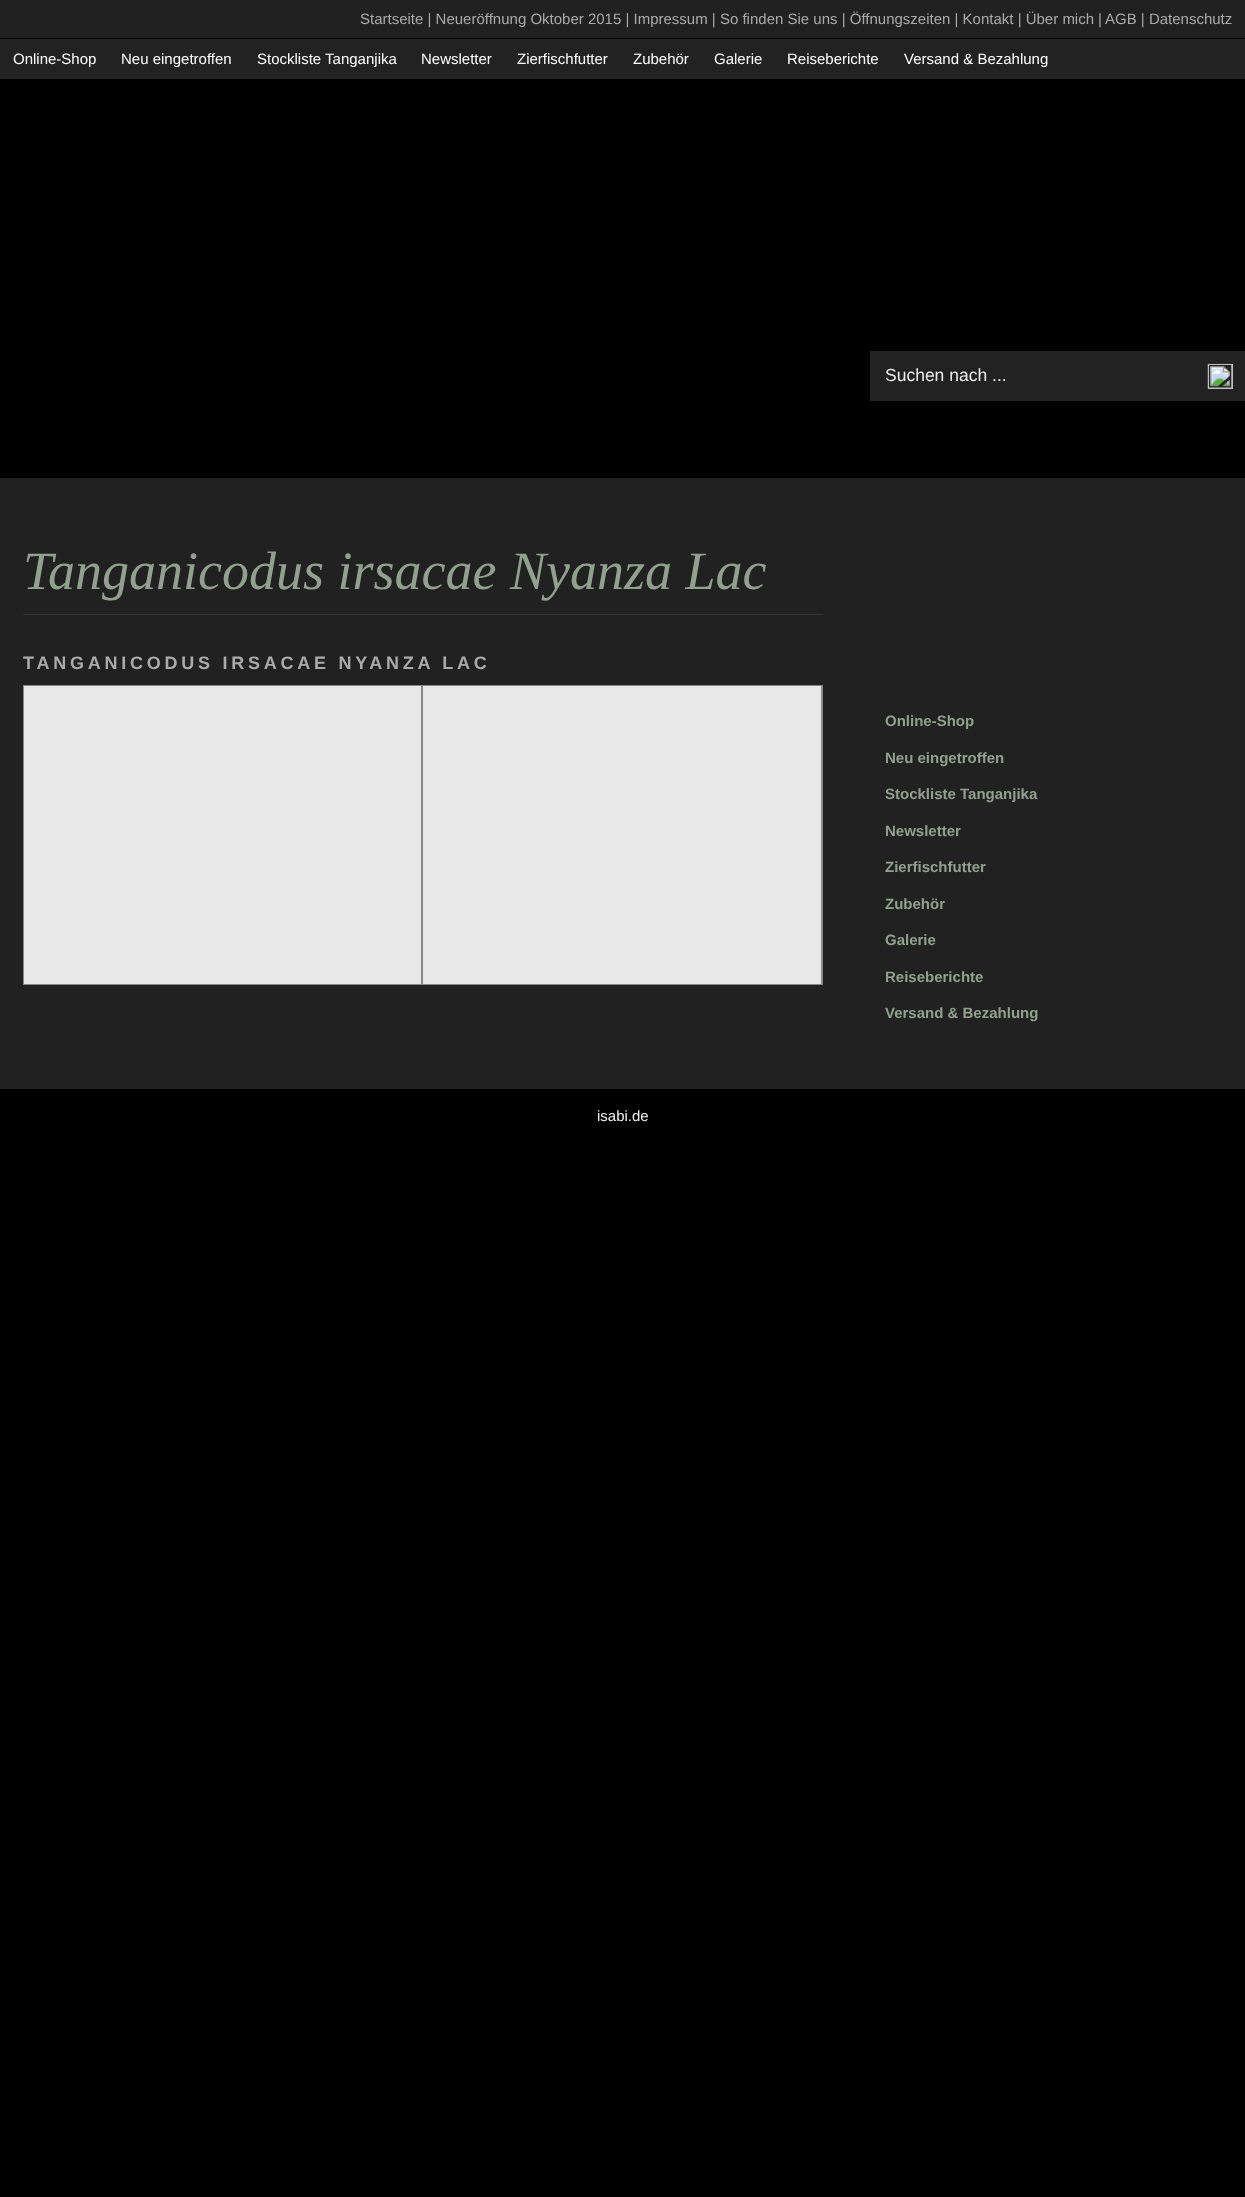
<!DOCTYPE html>
<meta charset="utf-8">
<style>body { margin: 0 } canvas { display: block }</style>
<canvas id="canvas" width="1245" height="2197"></canvas>
<script type="module">
  const canvas = document.getElementById("canvas");
  const g = canvas.getContext("2d");
  g.miterLimit = 4;
  g.fontKerning = "normal";
  function drawText(s, x, y, [font, color]) {
    g.font = font;
    g.fillStyle = color;
    g.fillText(s, x, y);
  }
  function fillBox(x, y, w, h, color) {
    g.fillStyle = color;
    g.fillRect(x, y, w, h);
  }
  async function drawPicture(src, x, y, w, h) {
    const img = new Image();
    img.src = src;
    await img.decode();
    g.drawImage(img, x, y, w, h);
  }

  const s1 = ["15px Liberation Sans", "#AAAAAA"];
  const s2 = ["15px Liberation Sans", "#FFFFFF"];
  const s3 = ["17.5px Liberation Sans", "#EEEEEE"];
  const s4 = ["italic 54px Liberation Serif", "#92A18F"];
  const s5 = ["bold 18px Liberation Sans", "#AAAAAA"];
  const s6 = ["bold 15px Liberation Sans", "#92A18F"];
  const s7 = ["15px Liberation Sans", "#EEEEEE"];

  fillBox(0, 0, 1245, 2197, "#000000");
  fillBox(0, 0, 1245, 38, "#212121");
  drawText("Startseite | Neueröffnung Oktober 2015 | Impressum | So finden Sie uns | Öffnungszeiten | Kontakt | Über mich", 360, 24, s1);
  drawText("|", 1098, 24, s1);
  drawText("AGB | Datenschutz", 1105, 24, s1);
  fillBox(0, 39, 1245, 40, "#222222");
  drawText("Online-Shop", 13, 64, s2);
  drawText("Neu eingetroffen", 121, 64, s2);
  drawText("Stockliste Tanganjika", 257, 64, s2);
  drawText("Newsletter", 421, 64, s2);
  drawText("Zierfischfutter", 517, 64, s2);
  drawText("Zubehör", 633, 64, s2);
  drawText("Galerie", 714, 64, s2);
  drawText("Reiseberichte", 787, 64, s2);
  drawText("Versand & Bezahlung", 904, 64, s2);
  fillBox(870, 351, 375, 50, "#222222");
  drawText("Suchen nach ...", 885, 381, s3);
  await drawPicture("pic1.png", 1207, 363, 25, 26);
  g.strokeStyle = "#C0C0C0";
  g.strokeRect(1208.5, 364.5, 24, 24);
  fillBox(0, 478, 1245, 611, "#212121");
  drawText("Tanganicodus irsacae Nyanza Lac", 23, 589, s4);
  fillBox(23, 614, 800, 1, "#333333");
  g.letterSpacing = "3.75px";
  drawText("TANGANICODUS IRSACAE NYANZA LAC", 23, 669, s5);
  fillBox(23, 685, 800, 300, "#888888");
  fillBox(24, 686, 397, 298, "#E8E8E8");
  fillBox(423, 686, 398, 298, "#E8E8E8");
  g.letterSpacing = "0px";
  drawText("Online-Shop", 885, 726, s6);
  drawText("Neu eingetroffen", 885, 763, s6);
  drawText("Stockliste Tanganjika", 885, 799, s6);
  drawText("Newsletter", 885, 836, s6);
  drawText("Zierfischfutter", 885, 872, s6);
  drawText("Zubehör", 885, 909, s6);
  drawText("Galerie", 885, 945, s6);
  drawText("Reiseberichte", 885, 982, s6);
  drawText("Versand & Bezahlung", 885, 1018, s6);
  drawText("isabi.de", 597, 1121, s7);
</script>
